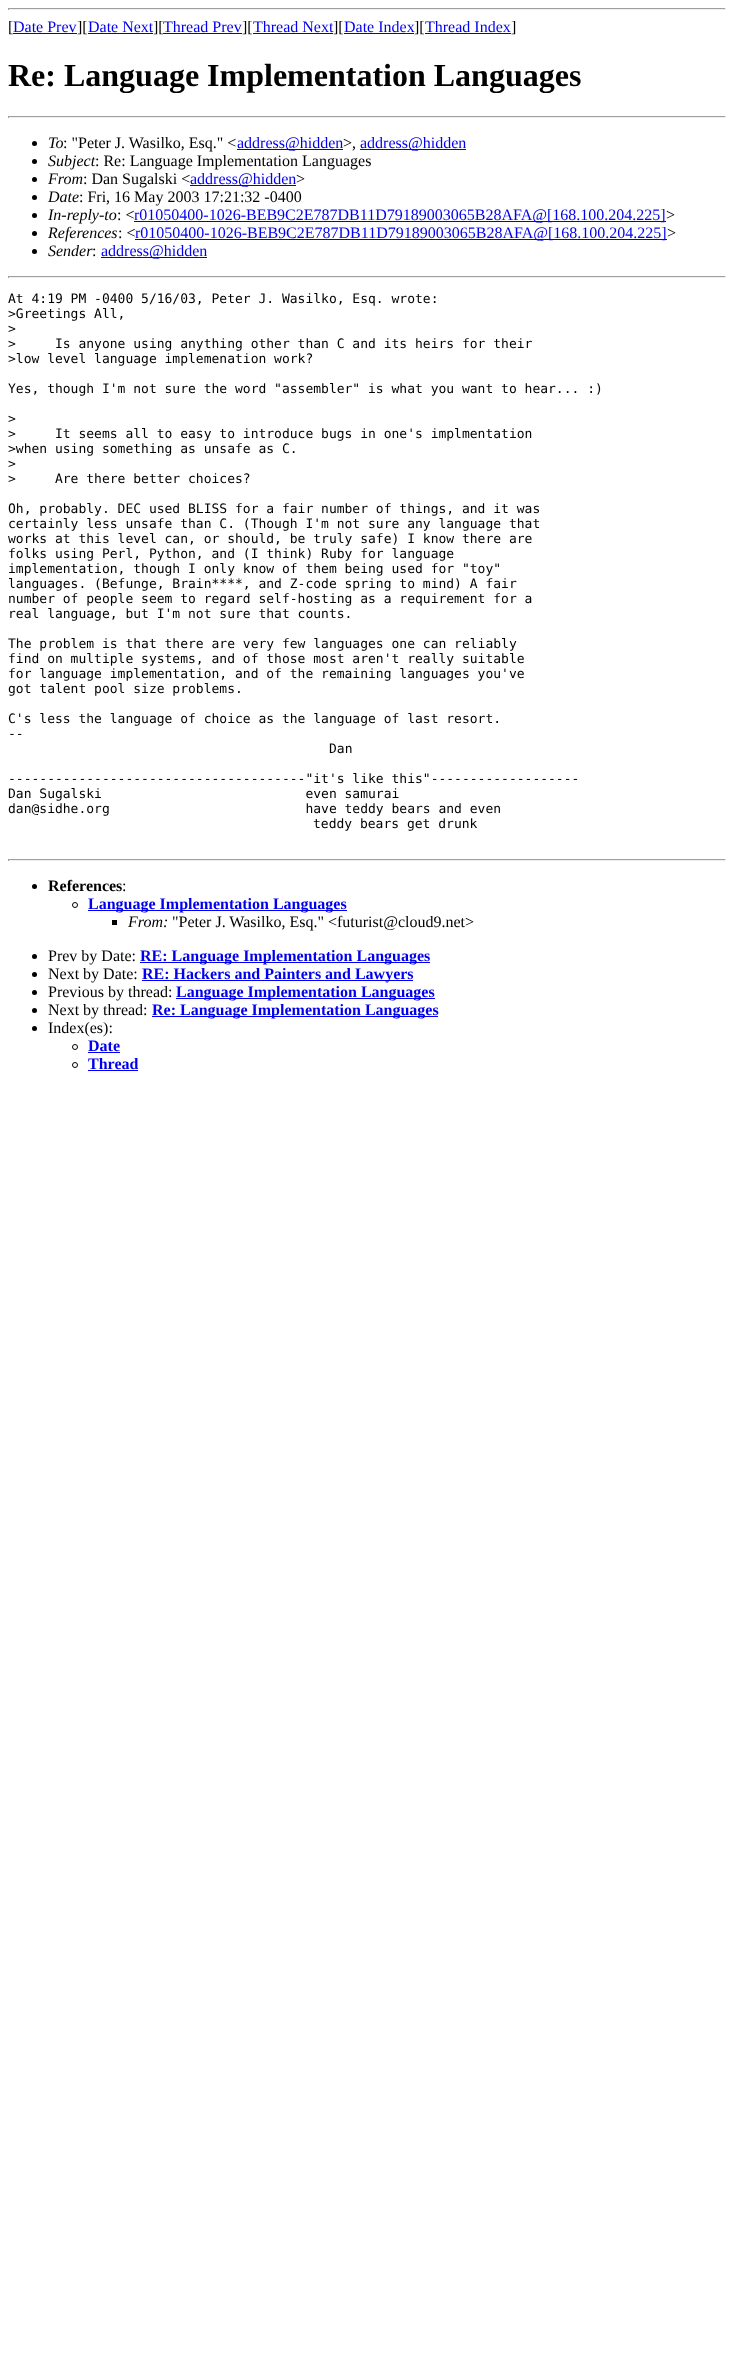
<!DOCTYPE html>
<meta charset="utf-8">
<style>body { margin: 0 } canvas { display: block }</style>
<canvas id="canvas" width="734" height="2361"></canvas>
<script type="module">
  const canvas = document.getElementById("canvas");
  const g = canvas.getContext("2d");
  g.miterLimit = 4;
  g.fontKerning = "normal";
  function drawText(s, x, y, [font, color]) {
    g.font = font;
    g.fillStyle = color;
    g.fillText(s, x, y);
  }
  function fillBox(x, y, w, h, color) {
    g.fillStyle = color;
    g.fillRect(x, y, w, h);
  }

  const s1 = ["16px Liberation Serif", "#000000"];
  const s2 = ["16px Liberation Serif", "#0000EE"];
  const s3 = ["bold 32px Liberation Serif", "#000000"];
  const s4 = ["italic 16px Liberation Serif", "#000000"];
  const s5 = ["13px DejaVu Sans Mono", "#000000"];
  const s6 = ["bold 16px Liberation Serif", "#000000"];
  const s7 = ["bold 16px Liberation Serif", "#0000EE"];

  fillBox(0, 0, 734, 2361, "#FFFFFF");
  fillBox(8, 8, 718, 1, "#9F9F9F");
  fillBox(725, 8, 1, 2, "#EEEEEE");
  fillBox(8, 9, 718, 1, "#EEEEEE");
  fillBox(8, 8, 1, 2, "#9F9F9F");
  drawText("[", 8, 32, s1);
  drawText("Date Prev", 13, 32, s2);
  fillBox(13, 33, 64, 1, "#0000EE");
  drawText("][", 77, 32, s1);
  drawText("Date Next", 88, 32, s2);
  fillBox(88, 33, 65, 1, "#0000EE");
  drawText("][", 153, 32, s1);
  drawText("Thread Prev", 163, 32, s2);
  fillBox(163, 33, 79, 1, "#0000EE");
  drawText("][", 242, 32, s1);
  drawText("Thread Next", 253, 32, s2);
  fillBox(253, 33, 80, 1, "#0000EE");
  drawText("][", 333, 32, s1);
  drawText("Date Index", 344, 32, s2);
  fillBox(344, 33, 70, 1, "#0000EE");
  drawText("][", 414, 32, s1);
  drawText("Thread Index", 425, 32, s2);
  fillBox(425, 33, 86, 1, "#0000EE");
  drawText("]", 511, 32, s1);
  drawText("Re: Language Implementation Languages", 8, 86, s3);
  fillBox(8, 116, 718, 1, "#9F9F9F");
  fillBox(725, 116, 1, 2, "#EEEEEE");
  fillBox(8, 117, 718, 1, "#EEEEEE");
  fillBox(8, 116, 1, 2, "#9F9F9F");
  g.fillStyle = "#000000";
  g.beginPath();
  g.arc(34.5, 143.5, 2.5, 0, Math.PI * 2);
  g.fill();
  drawText("To", 48, 148, s4);
  drawText(": \"Peter J. Wasilko, Esq.\" <", 63, 148, s1);
  fillBox(237, 149, 106, 1, "#0000EE");
  drawText("address@hidden", 237, 148, s2);
  drawText(">,", 343, 148, s1);
  fillBox(360, 149, 106, 1, "#0000EE");
  drawText("address@hidden", 360, 148, s2);
  g.fillStyle = "#000000";
  g.beginPath();
  g.arc(34.5, 161.5, 2.5, 0, Math.PI * 2);
  g.fill();
  drawText("Subject", 48, 166, s4);
  drawText(": Re: Language Implementation Languages", 95, 166, s1);
  g.beginPath();
  g.arc(34.5, 179.5, 2.5, 0, Math.PI * 2);
  g.fill();
  drawText("From", 48, 184, s4);
  drawText(": Dan Sugalski <", 83, 184, s1);
  fillBox(190, 185, 106, 1, "#0000EE");
  drawText("address@hidden", 190, 184, s2);
  drawText(">", 296, 184, s1);
  g.beginPath();
  g.arc(34.5, 197.5, 2.5, 0, Math.PI * 2);
  g.fill();
  drawText("Date", 48, 202, s4);
  drawText(": Fri, 16 May 2003 17:21:32 -0400", 79, 202, s1);
  g.beginPath();
  g.arc(34.5, 215.5, 2.5, 0, Math.PI * 2);
  g.fill();
  drawText("In-reply-to", 48, 220, s4);
  drawText(": <", 117, 220, s1);
  fillBox(134, 221, 532, 1, "#0000EE");
  drawText("r01050400-1026-BEB9C2E787DB11D79189003065B28AFA@[168.100.204.225]", 134, 220, s2);
  drawText(">", 666, 220, s1);
  g.beginPath();
  g.arc(34.5, 233.5, 2.5, 0, Math.PI * 2);
  g.fill();
  drawText("References", 48, 238, s4);
  drawText(": <", 118, 238, s1);
  fillBox(135, 239, 532, 1, "#0000EE");
  drawText("r01050400-1026-BEB9C2E787DB11D79189003065B28AFA@[168.100.204.225]", 135, 238, s2);
  drawText(">", 667, 238, s1);
  g.beginPath();
  g.arc(34.5, 251.5, 2.5, 0, Math.PI * 2);
  g.fill();
  drawText("Sender", 48, 256, s4);
  drawText(":", 92, 256, s1);
  fillBox(101, 257, 106, 1, "#0000EE");
  drawText("address@hidden", 101, 256, s2);
  fillBox(8, 276, 718, 1, "#9F9F9F");
  fillBox(725, 276, 1, 2, "#EEEEEE");
  fillBox(8, 277, 718, 1, "#EEEEEE");
  fillBox(8, 276, 1, 2, "#9F9F9F");
  drawText("At 4:19 PM -0400 5/16/03, Peter J. Wasilko, Esq. wrote:", 8, 303, s5);
  drawText(">Greetings All,", 8, 318, s5);
  drawText(">", 8, 333, s5);
  drawText(">     Is anyone using anything other than C and its heirs for their", 8, 348, s5);
  drawText(">low level language implemenation work?", 8, 363, s5);
  drawText("Yes, though I'm not sure the word \"assembler\" is what you want to hear... :)", 8, 393, s5);
  drawText(">", 8, 423, s5);
  drawText(">     It seems all to easy to introduce bugs in one's implmentation", 8, 438, s5);
  drawText(">when using something as unsafe as C.", 8, 453, s5);
  drawText(">", 8, 468, s5);
  drawText(">     Are there better choices?", 8, 483, s5);
  drawText("Oh, probably. DEC used BLISS for a fair number of things, and it was", 8, 513, s5);
  drawText("certainly less unsafe than C. (Though I'm not sure any language that", 8, 528, s5);
  drawText("works at this level can, or should, be truly safe) I know there are", 8, 543, s5);
  drawText("folks using Perl, Python, and (I think) Ruby for language", 8, 558, s5);
  drawText("implementation, though I only know of them being used for \"toy\"", 8, 573, s5);
  drawText("languages. (Befunge, Brain****, and Z-code spring to mind) A fair", 8, 588, s5);
  drawText("number of people seem to regard self-hosting as a requirement for a", 8, 603, s5);
  drawText("real language, but I'm not sure that counts.", 8, 618, s5);
  drawText("The problem is that there are very few languages one can reliably", 8, 648, s5);
  drawText("find on multiple systems, and of those most aren't really suitable", 8, 663, s5);
  drawText("for language implementation, and of the remaining languages you've", 8, 678, s5);
  drawText("got talent pool size problems.", 8, 693, s5);
  drawText("C's less the language of choice as the language of last resort.", 8, 723, s5);
  drawText("--", 8, 738, s5);
  drawText("Dan", 329, 753, s5);
  drawText("--------------------------------------\"it's like this\"-------------------", 8, 783, s5);
  drawText("Dan Sugalski                          even samurai", 8, 798, s5);
  drawText("dan@sidhe.org                         have teddy bears and even", 8, 813, s5);
  drawText("teddy bears get drunk", 313, 828, s5);
  fillBox(8, 859, 718, 1, "#9F9F9F");
  fillBox(725, 859, 1, 2, "#EEEEEE");
  fillBox(8, 860, 718, 1, "#EEEEEE");
  fillBox(8, 859, 1, 2, "#9F9F9F");
  g.fillStyle = "#000000";
  g.beginPath();
  g.arc(34.5, 886.5, 2.5, 0, Math.PI * 2);
  g.fill();
  drawText("References", 48, 891, s6);
  drawText(":", 122, 891, s1);
  g.beginPath();
  g.arc(75, 905, 2.5, 0, Math.PI * 2);
  g.strokeStyle = "#000000";
  g.stroke();
  fillBox(88, 910, 259, 1, "#0000EE");
  drawText("Language Implementation Languages", 88, 909, s7);
  fillBox(112, 920, 5, 5, "#000000");
  drawText("From:", 128, 927, s4);
  drawText("\"Peter J. Wasilko, Esq.\" <futurist@cloud9.net>", 172, 927, s1);
  g.beginPath();
  g.arc(34.5, 956.5, 2.5, 0, Math.PI * 2);
  g.fill();
  drawText("Prev by Date:", 48, 961, s1);
  fillBox(140, 962, 290, 1, "#0000EE");
  drawText("RE: Language Implementation Languages", 140, 961, s7);
  g.fillStyle = "#000000";
  g.beginPath();
  g.arc(34.5, 974.5, 2.5, 0, Math.PI * 2);
  g.fill();
  drawText("Next by Date:", 48, 979, s1);
  fillBox(142, 980, 271, 1, "#0000EE");
  drawText("RE: Hackers and Painters and Lawyers", 142, 979, s7);
  g.fillStyle = "#000000";
  g.beginPath();
  g.arc(34.5, 992.5, 2.5, 0, Math.PI * 2);
  g.fill();
  drawText("Previous by thread:", 48, 997, s1);
  fillBox(176, 998, 259, 1, "#0000EE");
  drawText("Language Implementation Languages", 176, 997, s7);
  g.fillStyle = "#000000";
  g.beginPath();
  g.arc(34.5, 1010.5, 2.5, 0, Math.PI * 2);
  g.fill();
  drawText("Next by thread:", 48, 1015, s1);
  fillBox(152, 1016, 286, 1, "#0000EE");
  drawText("Re: Language Implementation Languages", 152, 1015, s7);
  g.fillStyle = "#000000";
  g.beginPath();
  g.arc(34.5, 1028.5, 2.5, 0, Math.PI * 2);
  g.fill();
  drawText("Index(es):", 48, 1033, s1);
  g.beginPath();
  g.arc(75, 1047, 2.5, 0, Math.PI * 2);
  g.stroke();
  drawText("Date", 88, 1051, s7);
  fillBox(88, 1052, 32, 1, "#0000EE");
  g.beginPath();
  g.arc(75, 1065, 2.5, 0, Math.PI * 2);
  g.stroke();
  drawText("Thread", 88, 1069, s7);
  fillBox(88, 1070, 50, 1, "#0000EE");
</script>
